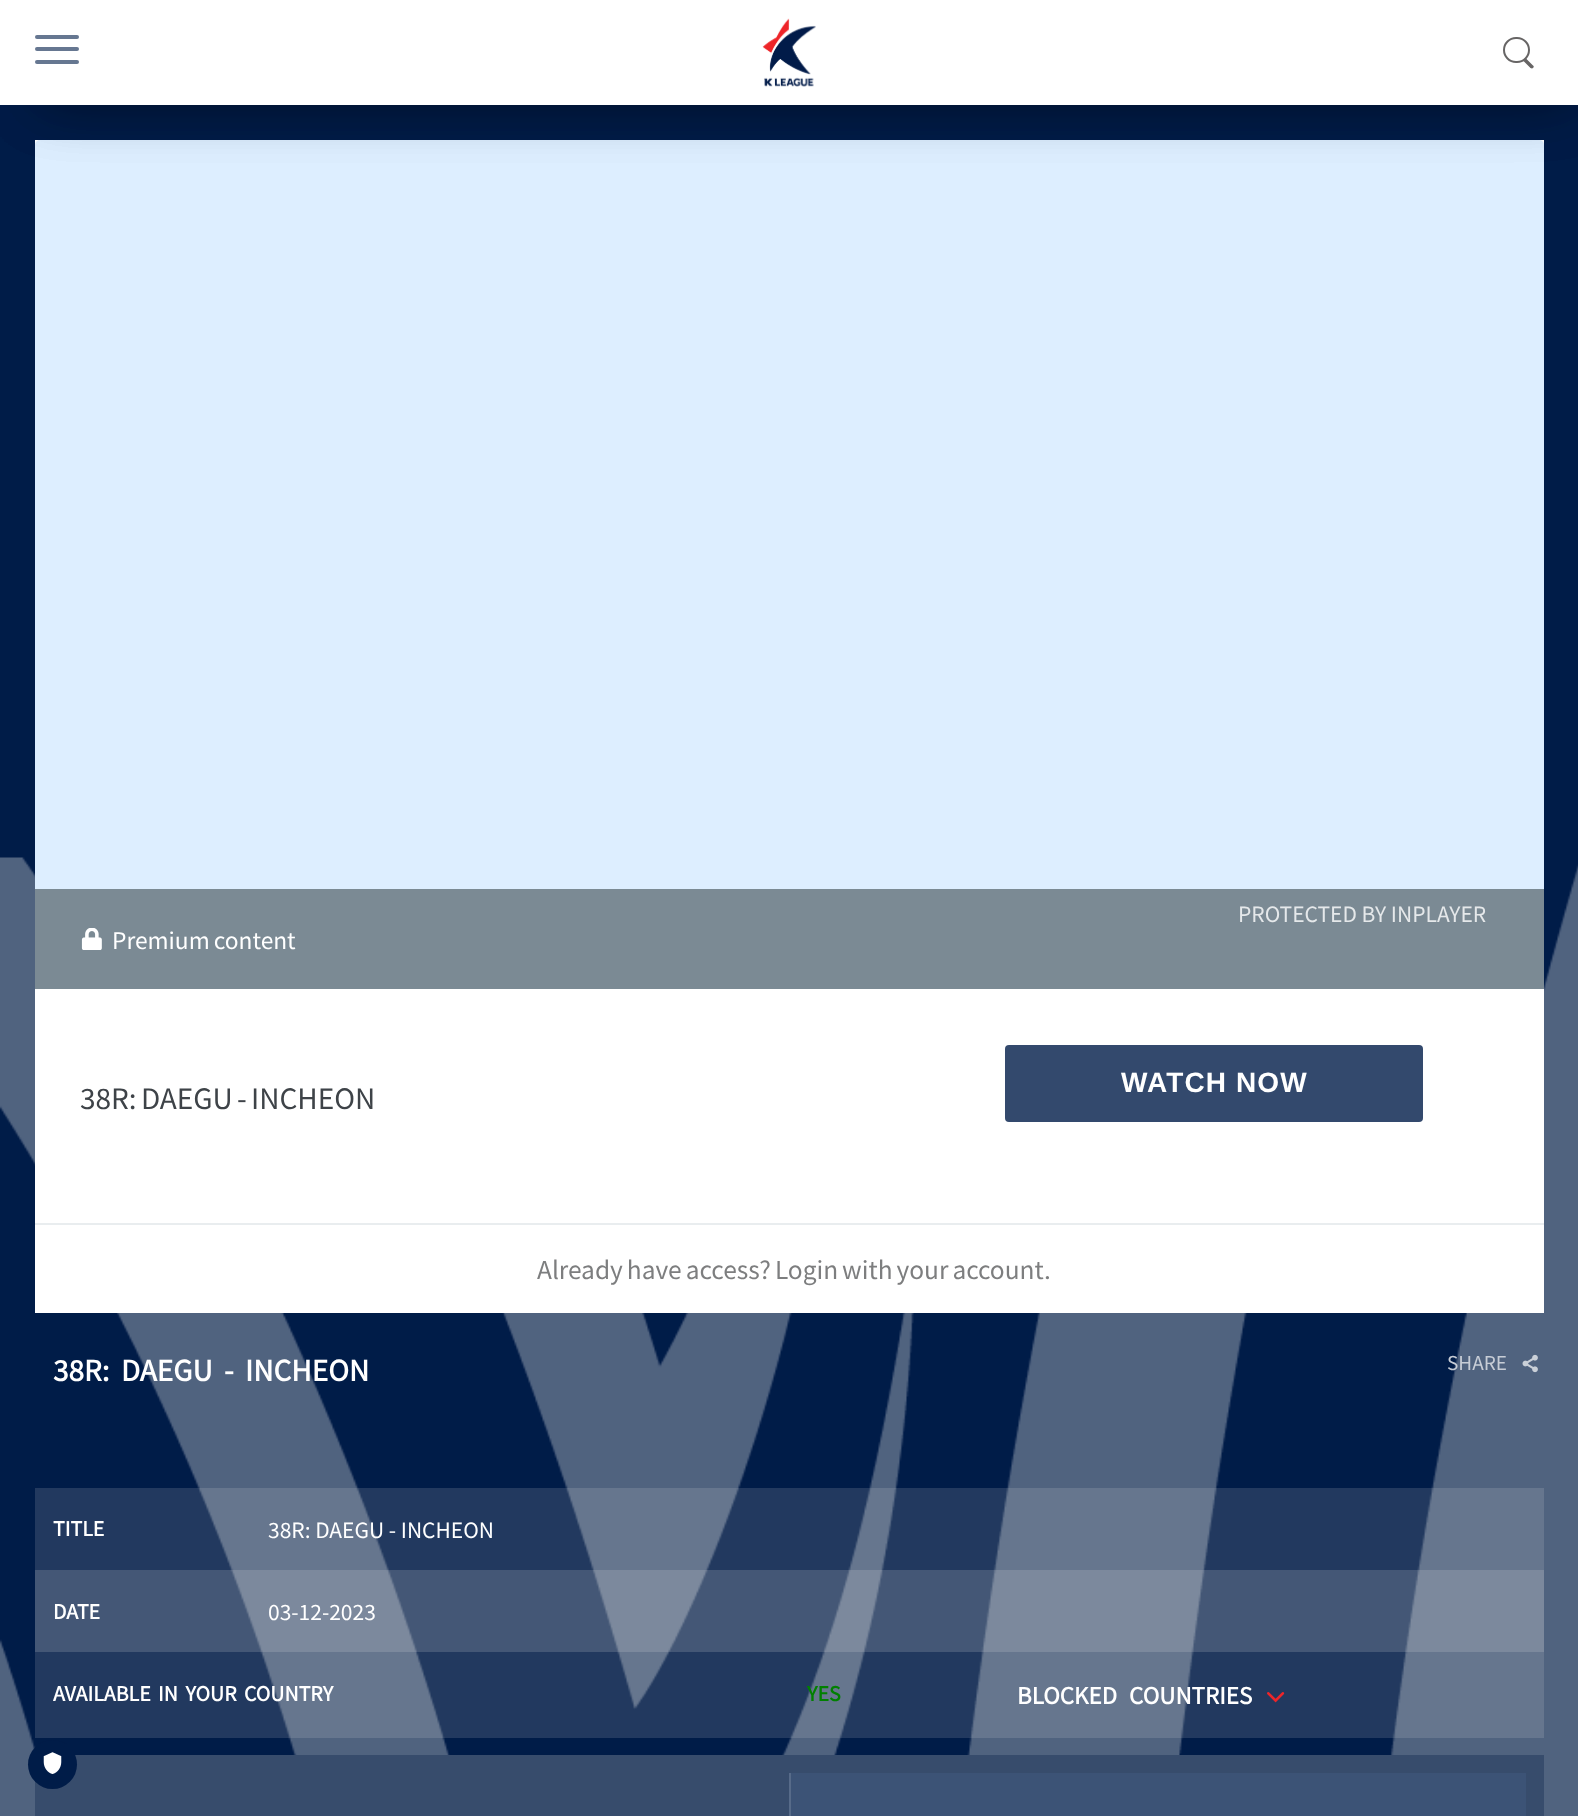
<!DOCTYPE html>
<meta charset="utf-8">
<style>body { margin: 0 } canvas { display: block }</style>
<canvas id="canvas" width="1578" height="1816"></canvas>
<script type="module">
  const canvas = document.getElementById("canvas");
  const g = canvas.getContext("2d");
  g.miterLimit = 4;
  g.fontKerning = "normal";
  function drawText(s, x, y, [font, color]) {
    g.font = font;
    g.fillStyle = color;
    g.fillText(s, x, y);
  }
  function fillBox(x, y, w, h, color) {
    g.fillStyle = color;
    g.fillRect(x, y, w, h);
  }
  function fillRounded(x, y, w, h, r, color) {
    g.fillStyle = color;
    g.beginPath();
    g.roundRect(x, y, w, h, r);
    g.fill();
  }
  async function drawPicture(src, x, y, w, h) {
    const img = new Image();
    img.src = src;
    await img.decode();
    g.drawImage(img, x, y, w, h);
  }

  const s1 = ["21px Noto Sans KR", "#E5E8EA"];
  const s2 = ["22.75px Noto Sans KR", "#FFFFFF"];
  const s3 = ["bold 28px Liberation Sans", "#FFFFFF"];
  const s4 = ["28px Noto Sans KR", "#3E4348"];
  const s5 = ["24.5px Noto Sans KR", "#7D7E7F"];
  const s6 = ["bold 28px Noto Sans KR", "#FFFFFF"];
  const s7 = ["19px Noto Sans KR", "#C7CDD6"];
  const s8 = ["bold 19.6px Noto Sans KR", "#FFFFFF"];
  const s9 = ["21px Noto Sans KR", "#FFFFFF"];
  const s10 = ["bold 19.6px Noto Sans KR", "#008000"];
  const s11 = ["bold 22.4px Noto Sans KR", "#FFFFFF"];

  fillBox(0, 0, 1578, 1816, "#001C48");
  await drawPicture("pic2.png", 0, 857, 1578, 959);
  fillBox(35, 140, 1509, 1173, "#FFFFFF");
  g.fillStyle = "#DDEEFF";
  g.beginPath();
  g.roundRect(35, 140, 1509, 849, [5, 5, 0, 0]);
  g.fill();
  g.fillStyle = "rgba(0, 0, 0, 0.26)";
  g.filter = "blur(28px)";
  g.beginPath();
  g.rect(39, 39, 1536, 63);
  g.fill();
  g.filter = "none";
  g.filter = "blur(28px)";
  g.beginPath();
  g.rect(39, 39, 1536, 63);
  g.fill();
  g.filter = "none";
  fillBox(0, 0, 1578, 105, "#FFFFFF");
  fillRounded(35, 35, 44, 4, 2, "#667791");
  fillRounded(35, 47, 44, 4, 2, "#667791");
  fillRounded(35, 60, 44, 4, 2, "#667791");
  await drawPicture("pic1.png", 762, 18, 54, 69);
  g.beginPath();
  g.roundRect(1504, 38, 25, 24, 12);
  g.strokeStyle = "#676565";
  g.lineWidth = 2;
  g.stroke();
  g.fillStyle = "#676565";
  g.beginPath();
  g.moveTo(1526, 58.5);
  g.lineTo(1533, 65.5);
  g.bezierCurveTo(1534, 66, 1534, 67, 1533, 68);
  g.bezierCurveTo(1532.5, 68.5, 1531.5, 68.5, 1530.5, 68);
  g.lineTo(1523.5, 61);
  g.closePath();
  g.fill();
  fillBox(35, 889, 1509, 100, "#7B8A94");
  drawText("PROTECTED BY INPLAYER", 1238, 922, s1);
  await drawPicture("pic3.png", 81, 928, 21, 22);
  g.wordSpacing = "-1px";
  drawText("Premium content", 112, 949, s2);
  fillRounded(1005, 1045, 418, 77, 4, "#33496D");
  g.letterSpacing = "1.1px";
  g.wordSpacing = "0px";
  drawText("WATCH NOW", 1121, 1092, s3);
  g.letterSpacing = "0px";
  g.wordSpacing = "-2px";
  drawText("38R: DAEGU - INCHEON", 80, 1109, s4);
  fillBox(35, 1223, 1509, 2, "#E9EDEF");
  g.wordSpacing = "-1.5px";
  drawText("Already have access? Login with your account.", 537, 1279, s5);
  g.wordSpacing = "5px";
  drawText("38R: DAEGU - INCHEON", 53, 1381, s6);
  g.wordSpacing = "0px";
  drawText("SHARE", 1447, 1370, s7);
  await drawPicture("pic4.png", 1522, 1354, 16, 19);
  fillBox(35, 1488, 1509, 250, "rgba(230, 230, 230, 0.15)");
  drawText("TITLE", 53, 1536, s8);
  drawText("38R: DAEGU - INCHEON", 268, 1538, s9);
  fillBox(35, 1570, 1509, 82, "rgba(230, 230, 230, 0.18)");
  drawText("DATE", 53, 1619, s8);
  drawText("03-12-2023", 268, 1620, s9);
  g.wordSpacing = "3px";
  drawText("AVAILABLE IN YOUR COUNTRY", 53, 1701, s8);
  g.wordSpacing = "0px";
  drawText("YES", 807, 1701, s10);
  g.wordSpacing = "7px";
  drawText("BLOCKED COUNTRIES", 1017, 1704, s11);
  await drawPicture("pic5.png", 1267, 1692, 18, 11);
  fillBox(35, 1755, 1509, 61, "#374C6C");
  fillBox(791, 1773, 735, 43, "#3C5376");
  fillBox(789, 1773, 2, 43, "#576B89");
  g.fillStyle = "#001C48";
  g.beginPath();
  g.arc(52.5, 1764.5, 24.5, 0, Math.PI * 2);
  g.fill();
  await drawPicture("pic6.png", 43, 1752, 19, 22);
</script>
